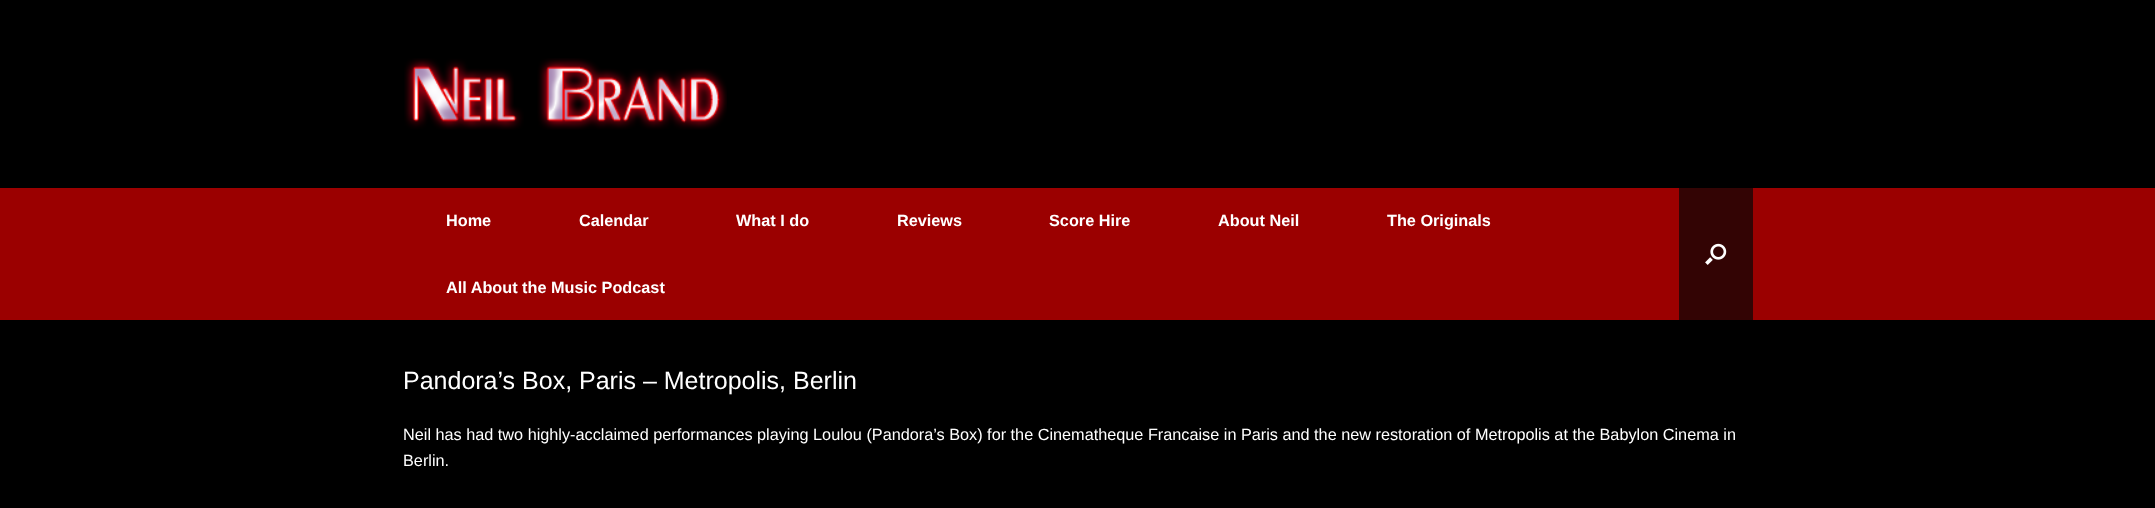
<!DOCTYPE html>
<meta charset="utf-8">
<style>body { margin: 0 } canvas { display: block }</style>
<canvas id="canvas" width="2155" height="508"></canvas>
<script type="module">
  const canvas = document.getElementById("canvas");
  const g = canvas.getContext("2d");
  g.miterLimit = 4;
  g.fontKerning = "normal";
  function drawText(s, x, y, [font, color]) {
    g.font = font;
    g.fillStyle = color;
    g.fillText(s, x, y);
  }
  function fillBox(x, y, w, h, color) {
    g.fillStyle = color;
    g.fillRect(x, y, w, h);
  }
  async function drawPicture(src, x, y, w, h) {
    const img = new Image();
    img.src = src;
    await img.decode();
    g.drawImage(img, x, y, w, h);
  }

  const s1 = ["bold 16.25px Liberation Sans", "#FFFFFF"];
  const s2 = ["25px Liberation Sans", "#FFFFFF"];
  const s3 = ["16.25px Liberation Sans", "#FFFFFF"];

  fillBox(0, 0, 2155, 508, "#000000");
  await drawPicture("pic1.png", 404, 58, 323, 72);
  fillBox(0, 188, 2155, 132, "#9B0000");
  drawText("Home", 446, 226, s1);
  drawText("Calendar", 579, 226, s1);
  drawText("What I do", 736, 226, s1);
  drawText("Reviews", 897, 226, s1);
  drawText("Score Hire", 1049, 226, s1);
  drawText("About Neil", 1218, 226, s1);
  drawText("The Originals", 1387, 226, s1);
  drawText("All About the Music Podcast", 446, 293, s1);
  fillBox(1679, 188, 74, 132, "#330404");
  await drawPicture("pic2.png", 1705, 243, 22, 22);
  drawText("Pandora’s Box, Paris – Metropolis, Berlin", 403, 389, s2);
  drawText("Neil has had two highly-acclaimed performances playing Loulou (Pandora’s Box) for the Cinematheque Francaise in Paris and the new restoration of Metropolis at the Babylon Cinema in", 403, 440, s3);
  drawText("Berlin.", 403, 466, s3);
</script>
